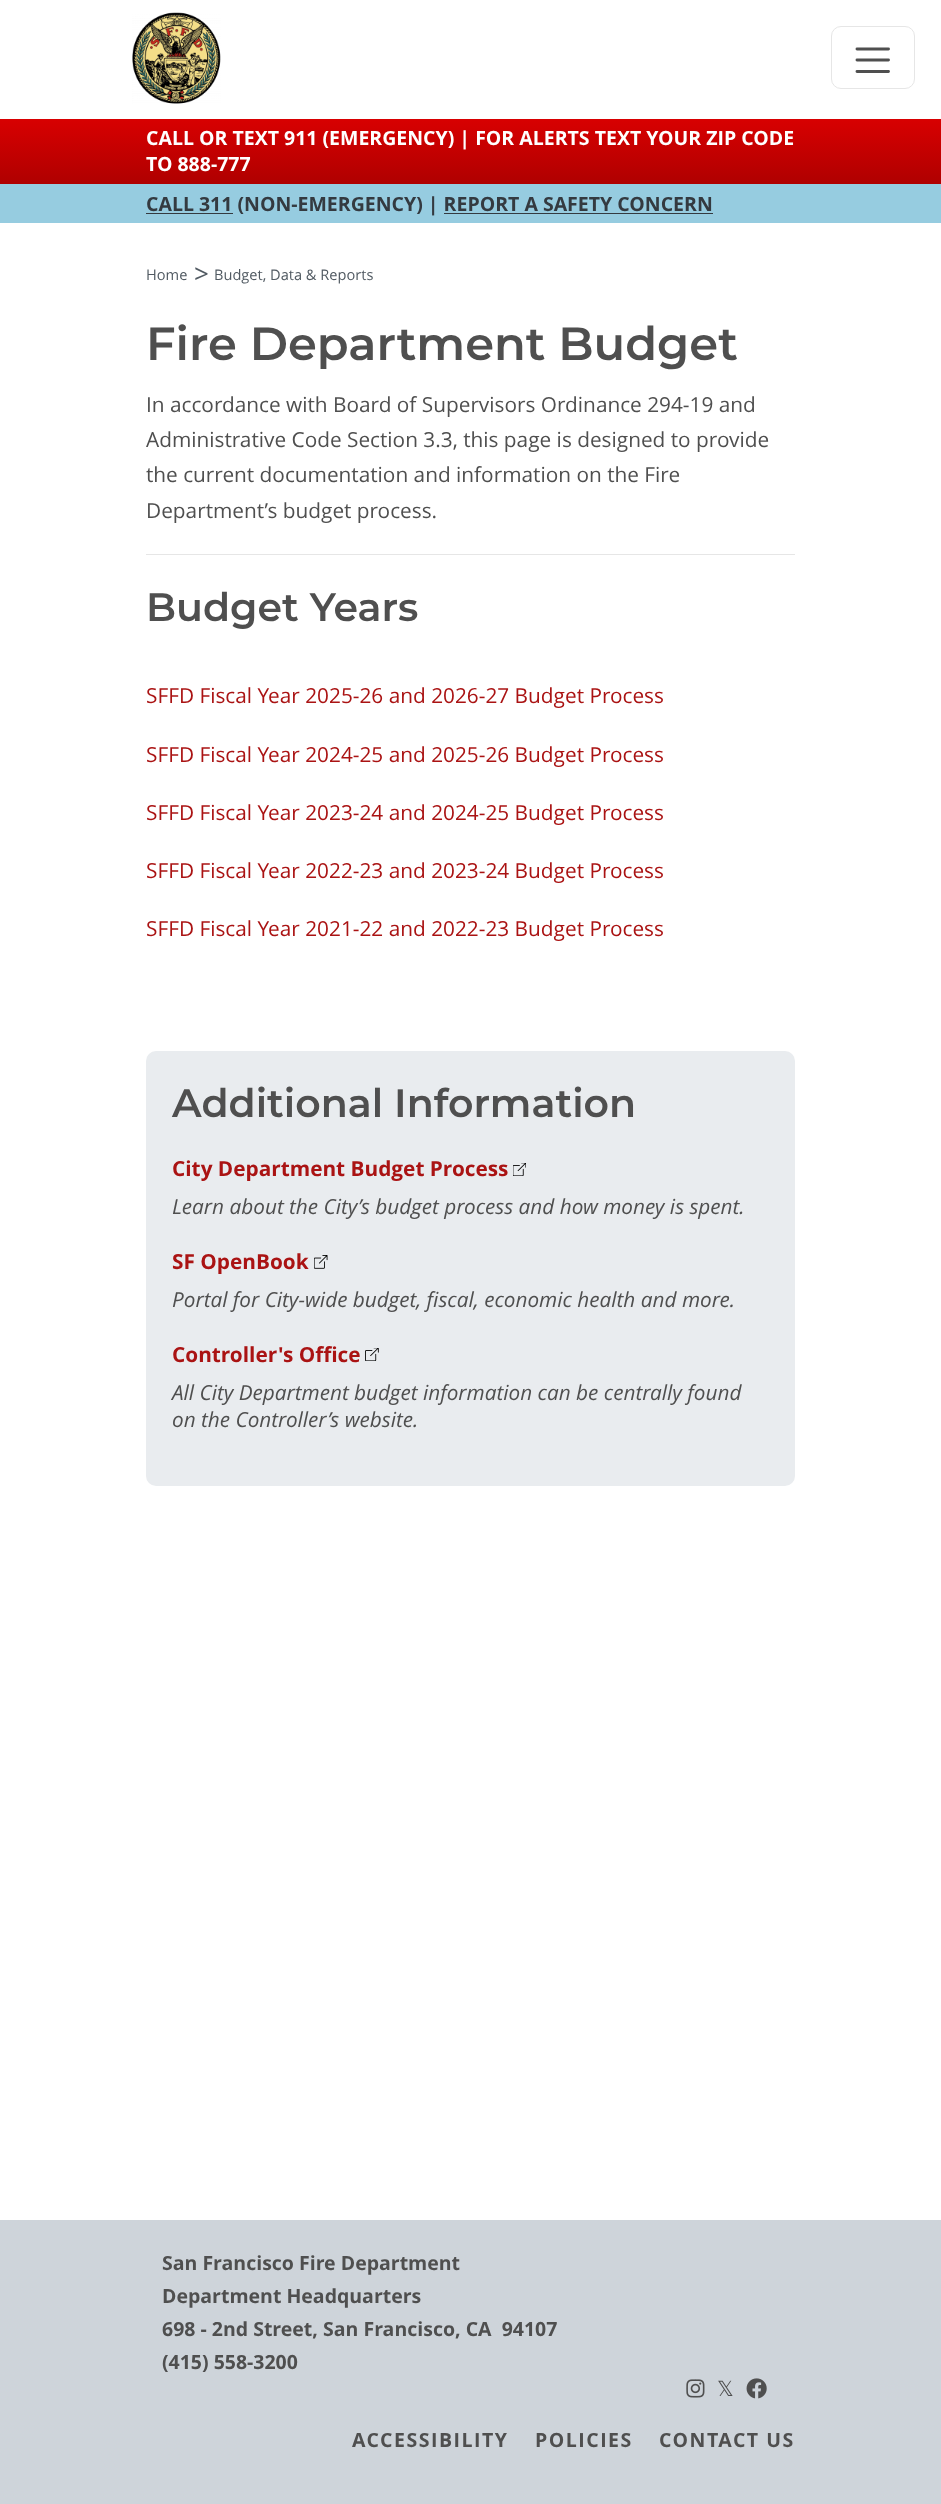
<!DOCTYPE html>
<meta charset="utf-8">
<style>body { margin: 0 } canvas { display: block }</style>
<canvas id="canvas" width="941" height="2504"></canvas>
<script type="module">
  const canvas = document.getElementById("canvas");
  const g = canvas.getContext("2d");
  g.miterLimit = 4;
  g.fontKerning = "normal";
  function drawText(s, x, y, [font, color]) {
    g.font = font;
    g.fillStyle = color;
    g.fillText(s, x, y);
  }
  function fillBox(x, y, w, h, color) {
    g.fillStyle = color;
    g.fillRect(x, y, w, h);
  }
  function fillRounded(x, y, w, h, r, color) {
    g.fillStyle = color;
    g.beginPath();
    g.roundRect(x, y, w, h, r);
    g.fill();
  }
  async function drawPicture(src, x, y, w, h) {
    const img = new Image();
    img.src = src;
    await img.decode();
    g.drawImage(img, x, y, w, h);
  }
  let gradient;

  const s1 = ["bold 19.5px Open Sans", "#FFFFFF"];
  const s2 = ["bold 19.5px Open Sans", "#343A40"];
  const s3 = ["14.6px Open Sans", "#515A62"];
  const s4 = ["26px Open Sans", "#515A62"];
  const s5 = ["600 46.4px Montserrat", "#4F4F4F"];
  const s6 = ["20.8px Open Sans", "#4F4F4F"];
  const s7 = ["600 39.5px Montserrat", "#4F4F4F"];
  const s8 = ["20.8px Open Sans", "#AA1313"];
  const s9 = ["bold 20.8px Open Sans", "#AA1313"];
  const s10 = ["italic 20.8px Open Sans", "#4F4F4F"];
  const s11 = ["bold 19.5px Open Sans", "#4F4F4F"];
  const s12 = ["20.8px DejaVu Sans", "#4F4F4F"];

  fillBox(0, 0, 941, 2504, "#FFFFFF");
  await drawPicture("pic1.png", 132, 12, 89, 92);
  g.beginPath();
  g.roundRect(831.5, 26.5, 83, 62, 9.5);
  g.strokeStyle = "#E6E6E6";
  g.stroke();
  g.beginPath();
  g.moveTo(857, 49);
  g.lineTo(888.5, 49);
  g.moveTo(857, 60);
  g.lineTo(888.5, 60);
  g.moveTo(857, 71.5);
  g.lineTo(888.5, 71.5);
  g.strokeStyle = "#4F4F4F";
  g.lineWidth = 2.9;
  g.lineCap = "round";
  g.stroke();
  gradient = g.createLinearGradient(471, 119, 471, 184);
  gradient.addColorStop(0, "#D80001");
  gradient.addColorStop(1, "#AF0000");
  gradient.addColorStop(1, "#FFFEFE");
  gradient.addColorStop(1, "#FFFFFF");
  gradient.addColorStop(1, "#8F0202");
  g.fillStyle = gradient;
  g.fillRect(0, 119, 941, 65);
  drawText("CALL OR TEXT 911 (EMERGENCY) | FOR ALERTS TEXT YOUR ZIP CODE", 146, 145, s1);
  drawText("TO 888-777", 146, 171, s1);
  fillBox(0, 184, 941, 39, "#96CCE0");
  fillBox(146, 213, 87, 1, "#343A40");
  drawText("CALL 311 (NON-EMERGENCY) | REPORT A SAFETY CONCERN", 146, 211, s2);
  fillBox(444, 213, 269, 1, "#343A40");
  drawText("Home", 146, 280, s3);
  drawText(">", 194, 283, s4);
  drawText("Budget, Data & Reports", 214, 280, s3);
  drawText("Fire Department Budget", 146, 360, s5);
  drawText("In accordance with Board of Supervisors Ordinance 294-19 and", 146, 412, s6);
  drawText("Administrative Code Section 3.3, this page is designed to provide", 146, 447, s6);
  drawText("the current documentation and information on the Fire", 146, 482, s6);
  drawText("Department’s budget process.", 146, 518, s6);
  fillBox(146, 554, 649, 1, "#E6E6E6");
  drawText("Budget Years", 146, 621, s7);
  drawText("SFFD Fiscal Year 2025-26 and 2026-27 Budget Process", 146, 703, s8);
  drawText("SFFD Fiscal Year 2024-25 and 2025-26 Budget Process", 146, 762, s8);
  drawText("SFFD Fiscal Year 2023-24 and 2024-25 Budget Process", 146, 820, s8);
  drawText("SFFD Fiscal Year 2022-23 and 2023-24 Budget Process", 146, 878, s8);
  drawText("SFFD Fiscal Year 2021-22 and 2022-23 Budget Process", 146, 936, s8);
  fillRounded(146, 1051, 649, 435, 10, "#E9ECEF");
  drawText("Additional Information", 172, 1117, s7);
  drawText("City Department Budget Process", 172, 1176, s9);
  await drawPicture("pic2.png", 513, 1163, 13, 13);
  drawText("Learn about the City’s budget process and how money is spent.", 172, 1214, s10);
  drawText("SF OpenBook", 172, 1269, s9);
  await drawPicture("pic3.png", 314, 1255, 14, 14);
  drawText("Portal for City-wide budget, fiscal, economic health and more.", 172, 1307, s10);
  drawText("Controller's Office", 172, 1362, s9);
  await drawPicture("pic4.png", 365, 1348, 14, 13);
  drawText("All City Department budget information can be centrally found", 172, 1400, s10);
  drawText("on the Controller’s website.", 172, 1427, s10);
  fillBox(0, 2220, 941, 284, "#CED4DA");
  drawText("San Francisco Fire Department", 162, 2270, s11);
  drawText("Department Headquarters", 162, 2303, s11);
  drawText("698 - 2nd Street, San Francisco, CA  94107", 162, 2336, s11);
  drawText("(415) 558-3200", 162, 2369, s11);
  await drawPicture("pic5.png", 686, 2379, 19, 19);
  drawText("𝕏", 717, 2396, s12);
  await drawPicture("pic6.png", 746, 2378, 21, 21);
  g.letterSpacing = "1.5px";
  drawText("ACCESSIBILITY", 352, 2447, s11);
  drawText("POLICIES", 535, 2447, s11);
  drawText("CONTACT US", 659, 2447, s11);
</script>
